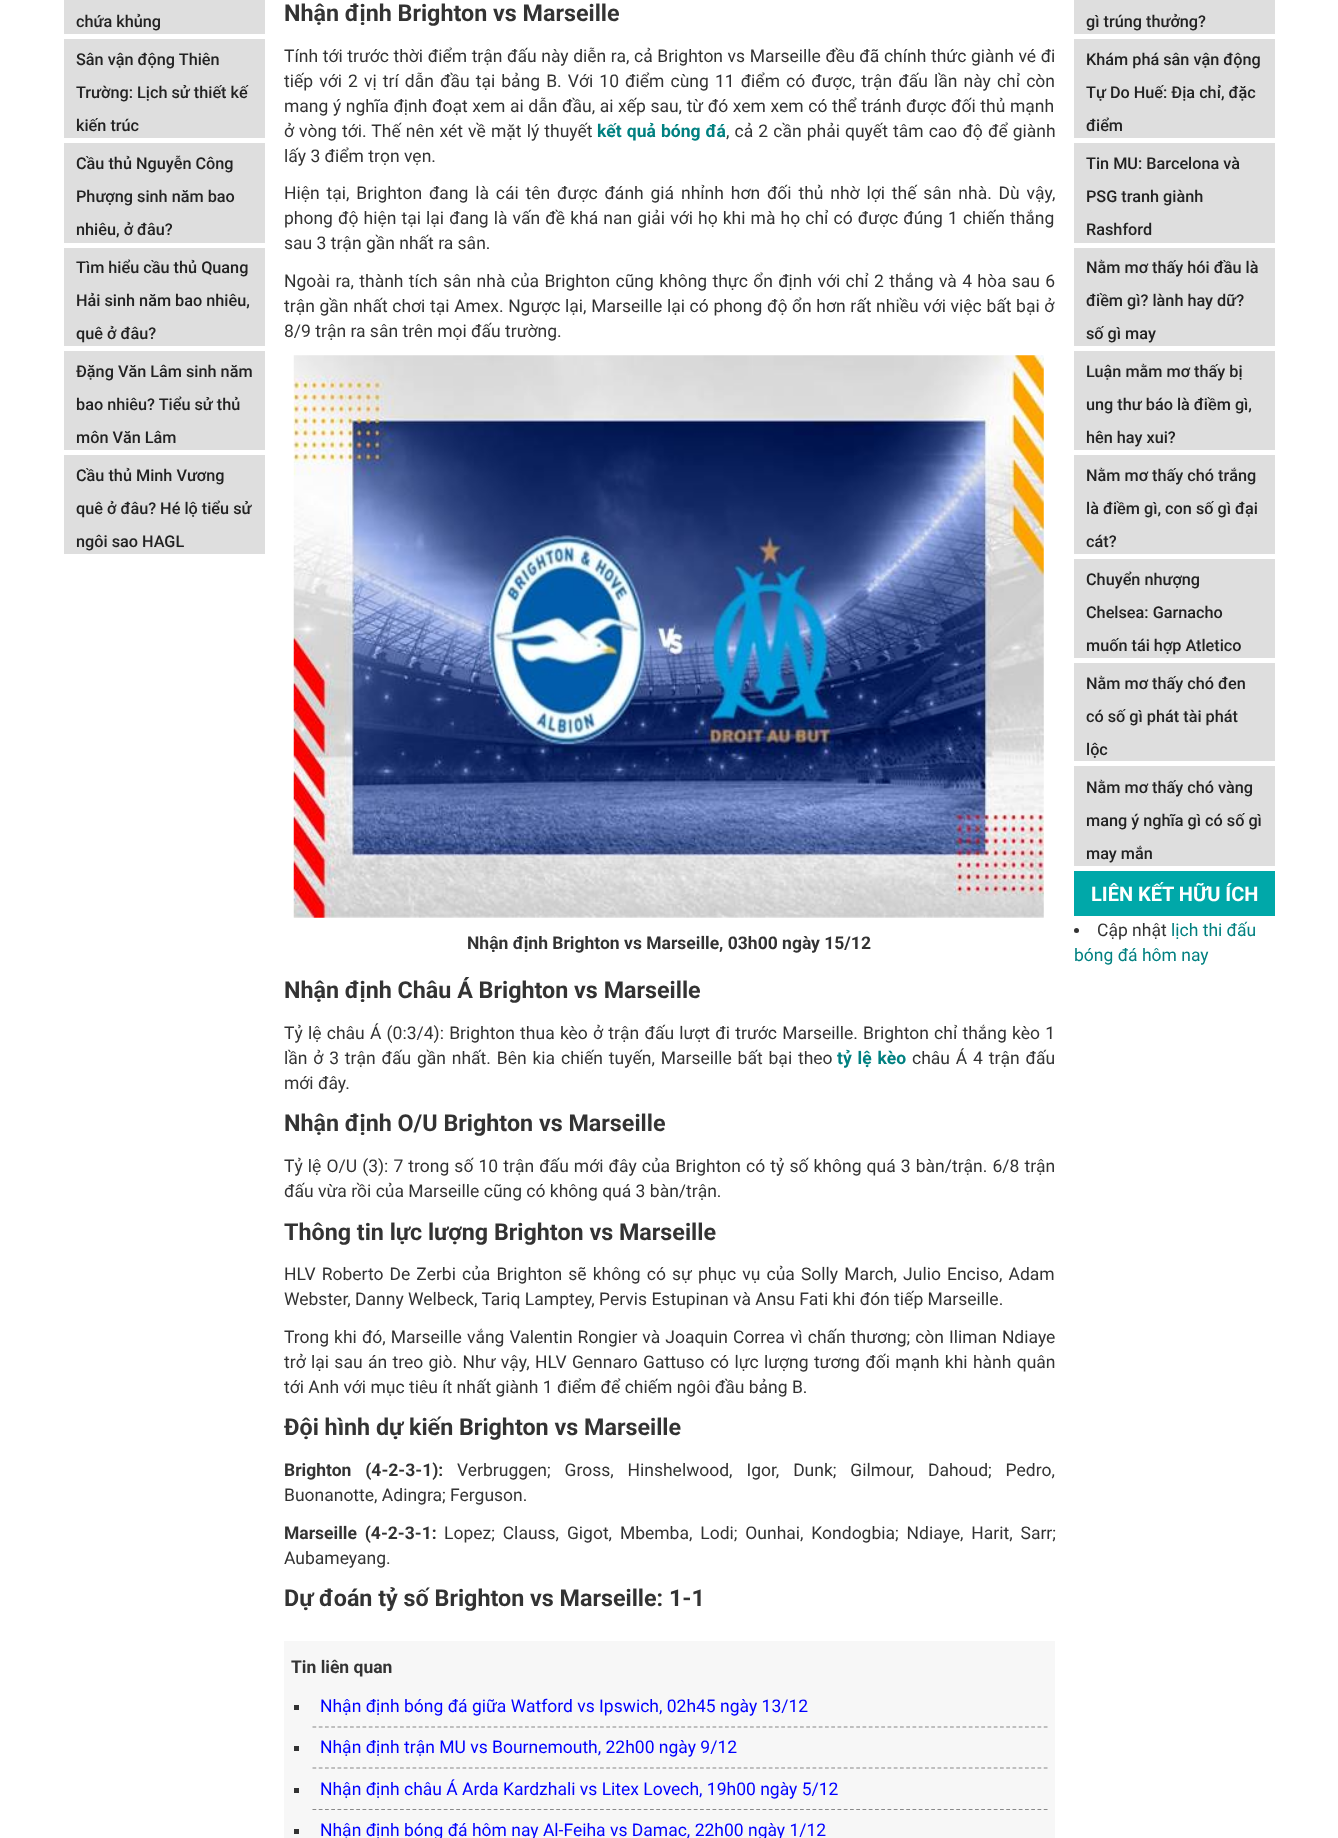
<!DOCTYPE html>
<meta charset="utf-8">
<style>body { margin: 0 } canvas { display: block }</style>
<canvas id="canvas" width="1338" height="1838"></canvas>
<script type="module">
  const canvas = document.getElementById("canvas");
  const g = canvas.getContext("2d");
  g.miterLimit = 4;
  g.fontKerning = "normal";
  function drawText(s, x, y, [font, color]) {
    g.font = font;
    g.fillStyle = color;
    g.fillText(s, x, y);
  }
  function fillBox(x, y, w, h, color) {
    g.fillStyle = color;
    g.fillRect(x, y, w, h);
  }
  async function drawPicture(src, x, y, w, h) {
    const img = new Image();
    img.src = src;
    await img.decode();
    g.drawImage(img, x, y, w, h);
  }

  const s1 = ["500 16.25px Roboto", "#222222"];
  const s2 = ["bold 23.3px Roboto", "#333333"];
  const s3 = ["17.5px Roboto", "#333333"];
  const s4 = ["bold 17.5px Roboto", "#008080"];
  const s5 = ["bold 17.5px Roboto", "#333333"];
  const s6 = ["17.5px Roboto", "#0000FF"];
  const s7 = ["bold 20px Roboto", "#FFFFFF"];
  const s8 = ["17.5px Roboto", "#008080"];

  fillBox(0, 0, 1338, 1838, "#FFFFFF");
  fillBox(64, 0, 201, 554, "#DEDEDE");
  fillBox(64, 34, 201, 5, "#FFFFFF");
  drawText("chứa khủng", 76, 27, s1);
  fillBox(64, 138, 201, 5, "#FFFFFF");
  drawText("Sân vận động Thiên", 76, 65, s1);
  drawText("Trường: Lịch sử thiết kế", 76, 98, s1);
  drawText("kiến trúc", 76, 131, s1);
  fillBox(64, 243, 201, 5, "#FFFFFF");
  drawText("Cầu thủ Nguyễn Công", 76, 169, s1);
  drawText("Phượng sinh năm bao", 76, 202, s1);
  drawText("nhiêu, ở đâu?", 76, 235, s1);
  fillBox(64, 346, 201, 5, "#FFFFFF");
  drawText("Tìm hiểu cầu thủ Quang", 76, 273, s1);
  drawText("Hải sinh năm bao nhiêu,", 76, 306, s1);
  drawText("quê ở đâu?", 76, 339, s1);
  fillBox(64, 450, 201, 5, "#FFFFFF");
  drawText("Đặng Văn Lâm sinh năm", 76, 377, s1);
  drawText("bao nhiêu? Tiểu sử thủ", 76, 410, s1);
  drawText("môn Văn Lâm", 76, 443, s1);
  drawText("Cầu thủ Minh Vương", 76, 481, s1);
  drawText("quê ở đâu? Hé lộ tiểu sử", 76, 514, s1);
  drawText("ngôi sao HAGL", 76, 547, s1);
  drawText("Nhận định Brighton vs Marseille", 284, 21, s2);
  g.wordSpacing = "0.25px";
  drawText("Tính tới trước thời điểm trận đấu này diễn ra, cả Brighton vs Marseille đều đã chính thức giành vé đi", 284, 62, s3);
  g.wordSpacing = "1.75px";
  drawText("tiếp với 2 vị trí dẫn đầu tại bảng B. Với 10 điểm cùng 11 điểm có được, trận đấu lần này chỉ còn", 284, 87, s3);
  g.wordSpacing = "0.25px";
  drawText("mang ý nghĩa định đoạt xem ai dẫn đầu, ai xếp sau, từ đó xem xem có thể tránh được đối thủ mạnh", 284, 112, s3);
  g.wordSpacing = "0.75px";
  drawText("ở vòng tới. Thế nên xét về mặt lý thuyết", 284, 137, s3);
  drawText("kết quả bóng đá", 597, 137, s4);
  drawText(", cả 2 cần phải quyết tâm cao độ để giành", 726, 137, s3);
  g.wordSpacing = "0px";
  drawText("lấy 3 điểm trọn vẹn.", 284, 162, s3);
  g.wordSpacing = "2.5px";
  drawText("Hiện tại, Brighton đang là cái tên được đánh giá nhỉnh hơn đối thủ nhờ lợi thế sân nhà. Dù vậy,", 284, 199, s3);
  g.wordSpacing = "0.75px";
  drawText("phong độ hiện tại lại đang là vấn đề khá nan giải với họ khi mà họ chỉ có được đúng 1 chiến thắng", 284, 224, s3);
  g.wordSpacing = "0px";
  drawText("sau 3 trận gần nhất ra sân.", 284, 249, s3);
  g.wordSpacing = "1px";
  drawText("Ngoài ra, thành tích sân nhà của Brighton cũng không thực ổn định với chỉ 2 thắng và 4 hòa sau 6", 284, 287, s3);
  g.wordSpacing = "0.3px";
  drawText("trận gần nhất chơi tại Amex. Ngược lại, Marseille lại có phong độ ổn hơn rất nhiều với việc bất bại ở", 284, 312, s3);
  g.wordSpacing = "0px";
  drawText("8/9 trận ra sân trên mọi đấu trường.", 284, 337, s3);
  await drawPicture("pic1.png", 293, 355, 751, 563);
  drawText("Nhận định Brighton vs Marseille, 03h00 ngày 15/12", 467, 949, s5);
  drawText("Nhận định Châu Á Brighton vs Marseille", 284, 998, s2);
  g.wordSpacing = "0.9px";
  drawText("Tỷ lệ châu Á (0:3/4): Brighton thua kèo ở trận đấu lượt đi trước Marseille. Brighton chỉ thắng kèo 1", 284, 1039, s3);
  g.wordSpacing = "1.5px";
  drawText("lần ở 3 trận đấu gần nhất. Bên kia chiến tuyến, Marseille bất bại theo", 284, 1064, s3);
  drawText("tỷ lệ kèo", 837, 1064, s4);
  drawText("châu Á 4 trận đấu", 912, 1064, s3);
  g.wordSpacing = "0px";
  drawText("mới đây.", 284, 1089, s3);
  drawText("Nhận định O/U Brighton vs Marseille", 284, 1131, s2);
  g.wordSpacing = "0.75px";
  drawText("Tỷ lệ O/U (3): 7 trong số 10 trận đấu mới đây của Brighton có tỷ số không quá 3 bàn/trận. 6/8 trận", 284, 1172, s3);
  g.wordSpacing = "0px";
  drawText("đấu vừa rồi của Marseille cũng có không quá 3 bàn/trận.", 284, 1197, s3);
  drawText("Thông tin lực lượng Brighton vs Marseille", 284, 1240, s2);
  g.wordSpacing = "1.75px";
  drawText("HLV Roberto De Zerbi của Brighton sẽ không có sự phục vụ của Solly March, Julio Enciso, Adam", 284, 1280, s3);
  g.wordSpacing = "0px";
  drawText("Webster, Danny Welbeck, Tariq Lamptey, Pervis Estupinan và Ansu Fati khi đón tiếp Marseille.", 284, 1305, s3);
  g.wordSpacing = "0.7px";
  drawText("Trong khi đó, Marseille vắng Valentin Rongier và Joaquin Correa vì chấn thương; còn Iliman Ndiaye", 284, 1343, s3);
  g.wordSpacing = "1px";
  drawText("trở lại sau án treo giò. Như vậy, HLV Gennaro Gattuso có lực lượng tương đối mạnh khi hành quân", 284, 1368, s3);
  g.wordSpacing = "0px";
  drawText("tới Anh với mục tiêu ít nhất giành 1 điểm để chiếm ngôi đầu bảng B.", 284, 1393, s3);
  drawText("Đội hình dự kiến Brighton vs Marseille", 284, 1435, s2);
  g.wordSpacing = "9.5px";
  drawText("Brighton (4-2-3-1):", 284, 1476, s5);
  drawText("Verbruggen; Gross, Hinshelwood, Igor, Dunk; Gilmour, Dahoud; Pedro,", 457, 1476, s3);
  g.wordSpacing = "0px";
  drawText("Buonanotte, Adingra; Ferguson.", 284, 1501, s3);
  g.wordSpacing = "3.5px";
  drawText("Marseille (4-2-3-1:", 284, 1539, s5);
  drawText("Lopez; Clauss, Gigot, Mbemba, Lodi; Ounhai, Kondogbia; Ndiaye, Harit, Sarr;", 444, 1539, s3);
  g.wordSpacing = "0px";
  drawText("Aubameyang.", 284, 1564, s3);
  drawText("Dự đoán tỷ số Brighton vs Marseille: 1-1", 284, 1606, s2);
  fillBox(284, 1641, 771, 197, "#F7F7F7");
  drawText("Tin liên quan", 291, 1673, s5);
  g.beginPath();
  g.moveTo(312.5, 1727);
  g.lineTo(1047.5, 1727);
  g.strokeStyle = "#888888";
  g.lineWidth = 1.2;
  g.setLineDash([3.75, 2.5]);
  g.stroke();
  fillBox(294, 1705, 5, 5, "#333333");
  drawText("Nhận định bóng đá giữa Watford vs Ipswich, 02h45 ngày 13/12", 320, 1712, s6);
  g.beginPath();
  g.moveTo(312.5, 1768);
  g.lineTo(1047.5, 1768);
  g.stroke();
  fillBox(294, 1746, 5, 5, "#333333");
  drawText("Nhận định trận MU vs Bournemouth, 22h00 ngày 9/12", 320, 1753, s6);
  g.beginPath();
  g.moveTo(312.5, 1809.5);
  g.lineTo(1047.5, 1809.5);
  g.stroke();
  fillBox(294, 1788, 5, 5, "#333333");
  drawText("Nhận định châu Á Arda Kardzhali vs Litex Lovech, 19h00 ngày 5/12", 320, 1795, s6);
  fillBox(294, 1829, 5, 5, "#333333");
  drawText("Nhận định bóng đá hôm nay Al-Feiha vs Damac, 22h00 ngày 1/12", 320, 1836, s6);
  fillBox(1074, 0, 201, 866, "#DEDEDE");
  fillBox(1074, 34, 201, 5, "#FFFFFF");
  drawText("gì trúng thưởng?", 1086, 27, s1);
  fillBox(1074, 138, 201, 5, "#FFFFFF");
  drawText("Khám phá sân vận động", 1086, 65, s1);
  drawText("Tự Do Huế: Địa chỉ, đặc", 1086, 98, s1);
  drawText("điểm", 1086, 131, s1);
  fillBox(1074, 243, 201, 5, "#FFFFFF");
  drawText("Tin MU: Barcelona và", 1086, 169, s1);
  drawText("PSG tranh giành", 1086, 202, s1);
  drawText("Rashford", 1086, 235, s1);
  fillBox(1074, 346, 201, 5, "#FFFFFF");
  drawText("Nằm mơ thấy hói đầu là", 1086, 273, s1);
  drawText("điềm gì? lành hay dữ?", 1086, 306, s1);
  drawText("số gì may", 1086, 339, s1);
  fillBox(1074, 450, 201, 5, "#FFFFFF");
  drawText("Luận mằm mơ thấy bị", 1086, 377, s1);
  drawText("ung thư báo là điềm gì,", 1086, 410, s1);
  drawText("hên hay xui?", 1086, 443, s1);
  fillBox(1074, 554, 201, 5, "#FFFFFF");
  drawText("Nằm mơ thấy chó trắng", 1086, 481, s1);
  drawText("là điềm gì, con số gì đại", 1086, 514, s1);
  drawText("cát?", 1086, 547, s1);
  fillBox(1074, 658, 201, 5, "#FFFFFF");
  drawText("Chuyển nhượng", 1086, 585, s1);
  drawText("Chelsea: Garnacho", 1086, 618, s1);
  drawText("muốn tái hợp Atletico", 1086, 651, s1);
  fillBox(1074, 761, 201, 5, "#FFFFFF");
  drawText("Nằm mơ thấy chó đen", 1086, 689, s1);
  drawText("có số gì phát tài phát", 1086, 722, s1);
  drawText("lộc", 1086, 755, s1);
  drawText("Nằm mơ thấy chó vàng", 1086, 793, s1);
  drawText("mang ý nghĩa gì có số gì", 1086, 826, s1);
  drawText("may mắn", 1086, 859, s1);
  fillBox(1074, 871, 201, 45, "#00A8A9");
  drawText("LIÊN KẾT HỮU ÍCH", 1091, 901, s7);
  g.fillStyle = "#333333";
  g.beginPath();
  g.arc(1076.5, 930.5, 2.5, 0, Math.PI * 2);
  g.fill();
  drawText("Cập nhật", 1097, 936, s3);
  drawText("lịch thi đấu", 1171, 936, s8);
  drawText("bóng đá hôm nay", 1074, 961, s8);
</script>
